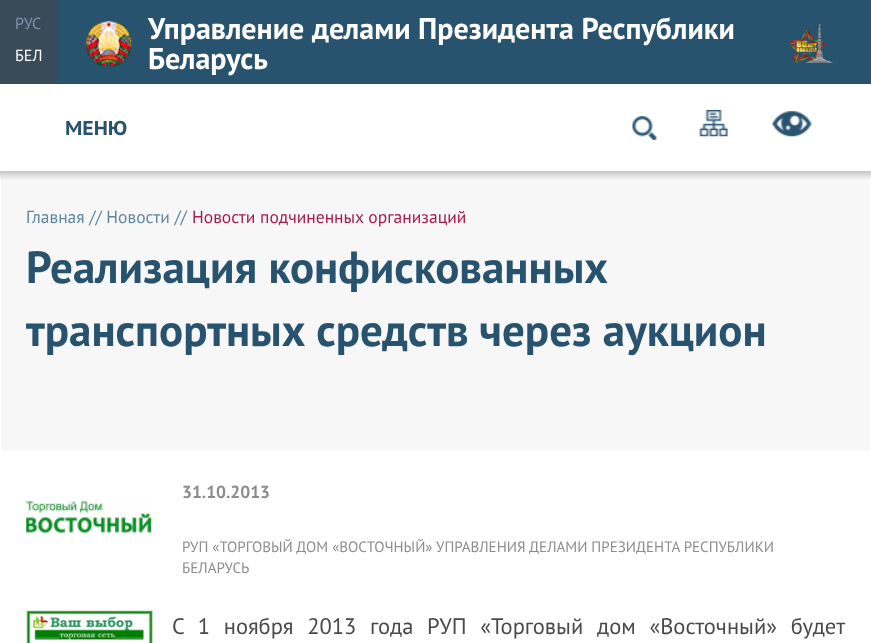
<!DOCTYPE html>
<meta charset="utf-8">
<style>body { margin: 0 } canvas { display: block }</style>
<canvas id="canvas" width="871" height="643"></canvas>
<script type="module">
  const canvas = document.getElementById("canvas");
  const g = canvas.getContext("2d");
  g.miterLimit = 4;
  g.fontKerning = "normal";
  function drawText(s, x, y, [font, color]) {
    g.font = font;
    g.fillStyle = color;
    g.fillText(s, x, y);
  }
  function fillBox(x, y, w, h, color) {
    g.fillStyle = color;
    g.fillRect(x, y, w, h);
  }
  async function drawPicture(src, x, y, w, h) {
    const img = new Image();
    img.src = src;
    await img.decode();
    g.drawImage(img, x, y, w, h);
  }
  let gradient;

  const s1 = ["16px PT Sans", "#8094B3"];
  const s2 = ["16px PT Sans", "#FFFFFF"];
  const s3 = ["bold 30px PT Sans", "#FFFFFF"];
  const s4 = ["bold 20px PT Sans Caption", "#28536F"];
  const s5 = ["17.5px PT Sans", "#5F869F"];
  const s6 = ["17.5px PT Sans", "#A81A4C"];
  const s7 = ["bold 45px PT Sans", "#28536F"];
  const s8 = ["bold 17.5px PT Sans", "#8C8C8C"];
  const s9 = ["15px PT Sans", "#8C8C8C"];
  const s10 = ["22.5px PT Sans", "#494949"];

  fillBox(0, 0, 871, 643, "#FFFFFF");
  fillBox(58, 0, 813, 84, "#28536F");
  fillBox(0, 0, 58, 84, "#394A58");
  drawText("РУС", 15, 29, s1);
  drawText("БЕЛ", 15, 61, s2);
  await drawPicture("pic1.png", 86, 21, 46, 46);
  drawText("Управление делами Президента Республики", 148, 39, s3);
  await drawPicture("pic2.png", 789, 23, 44, 40);
  drawText("Беларусь", 148, 69, s3);
  drawText("МЕНЮ", 65, 135, s4);
  await drawPicture("pic3.png", 632, 116, 25, 24);
  await drawPicture("pic4.png", 699, 110, 29, 27);
  await drawPicture("pic5.png", 772, 111, 40, 26);
  fillBox(1, 171, 869, 279, "#F7F7F7");
  gradient = g.createLinearGradient(436, 171, 436, 180);
  gradient.addColorStop(0, "#C6C6C6");
  gradient.addColorStop(1, "rgba(198, 198, 198, 0)");
  g.fillStyle = gradient;
  g.fillRect(0, 171, 871, 9);
  drawText("Главная // Новости //", 26, 223, s5);
  drawText("Новости подчиненных организаций", 192, 223, s6);
  drawText("Реализация конфискованных", 26, 283, s7);
  drawText("транспортных средств через аукцион", 26, 346, s7);
  drawText("31.10.2013", 182, 498, s8);
  await drawPicture("pic6.png", 26, 501, 126, 33);
  drawText("РУП «ТОРГОВЫЙ ДОМ «ВОСТОЧНЫЙ» УПРАВЛЕНИЯ ДЕЛАМИ ПРЕЗИДЕНТА РЕСПУБЛИКИ", 182, 552, s9);
  drawText("БЕЛАРУСЬ", 182, 573, s9);
  await drawPicture("pic7.png", 26, 610, 128, 33);
  g.wordSpacing = "7.75px";
  drawText("С 1 ноября 2013 года РУП «Торговый дом «Восточный» будет", 172, 634, s10);
</script>
